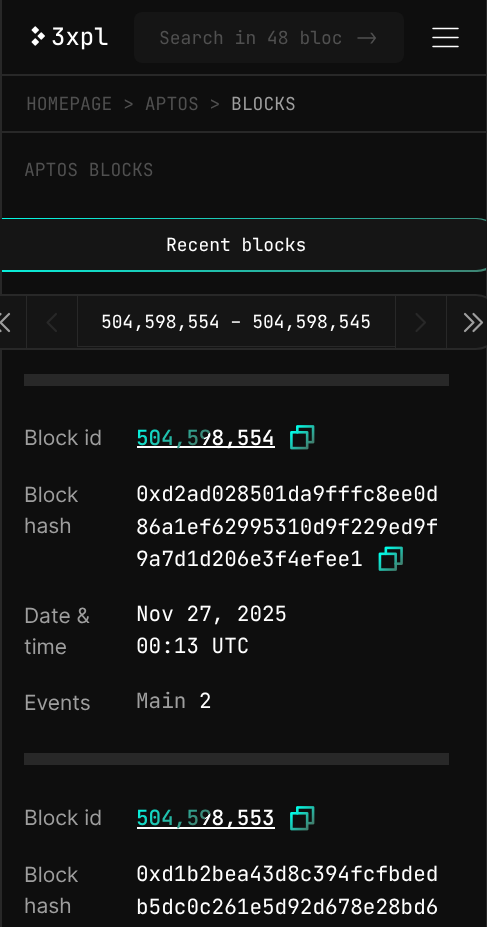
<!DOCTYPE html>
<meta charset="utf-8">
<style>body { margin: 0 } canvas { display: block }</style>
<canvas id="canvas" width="487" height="927"></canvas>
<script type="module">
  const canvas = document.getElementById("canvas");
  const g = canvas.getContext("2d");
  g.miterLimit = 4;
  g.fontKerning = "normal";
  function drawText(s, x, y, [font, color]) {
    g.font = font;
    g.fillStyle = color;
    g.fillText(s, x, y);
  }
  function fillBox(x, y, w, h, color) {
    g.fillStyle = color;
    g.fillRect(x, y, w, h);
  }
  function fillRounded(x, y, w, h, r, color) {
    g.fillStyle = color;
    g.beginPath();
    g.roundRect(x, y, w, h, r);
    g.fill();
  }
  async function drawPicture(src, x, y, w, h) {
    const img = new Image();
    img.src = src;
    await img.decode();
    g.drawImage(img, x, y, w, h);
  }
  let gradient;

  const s1 = ["18px JetBrains Mono", "#505050"];
  const s2 = ["18px JetBrains Mono", "#9E9E9E"];
  const s3 = ["18px JetBrains Mono", "#FFFFFF"];
  const s4 = ["21px Inter", "#9E9E9E"];
  const s5 = ["21px JetBrains Mono", "#FFFFFF"];
  const s6 = ["21px JetBrains Mono", "#9E9E9E"];

  fillBox(0, 0, 487, 927, "#0E0E0E");
  gradient = g.createLinearGradient(92, 99, 383, 390);
  gradient.addColorStop(0, "#00FFEA");
  gradient.addColorStop(1, "#40806F");
  g.fillStyle = gradient;
  g.beginPath();
  g.roundRect(-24, 218, 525, 54, 24);
  g.fill();
  g.strokeStyle = "#282828";
  g.lineWidth = 2;
  g.strokeRect(1, 1, 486, 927);
  fillBox(2, 0, 484, 2, "#0E0E0E");
  fillBox(0, 74, 487, 2, "#282828");
  await drawPicture("pic1.png", 31, 26, 77, 24);
  fillRounded(134, 12, 270, 51, 8, "#151515");
  drawText("Search in 48 bloc", 159, 44, s1);
  drawText("->", 356, 44, s1);
  g.beginPath();
  g.moveTo(433, 37.5);
  g.lineTo(458, 37.5);
  g.moveTo(433, 28.5);
  g.lineTo(458, 28.5);
  g.moveTo(433, 46.5);
  g.lineTo(458, 46.5);
  g.strokeStyle = "#FFFFFF";
  g.lineWidth = 1.5;
  g.lineCap = "round";
  g.lineJoin = "round";
  g.stroke();
  fillBox(0, 131, 487, 2, "#282828");
  drawText("HOMEPAGE > APTOS >", 26, 110, s1);
  drawText("BLOCKS", 231, 110, s2);
  drawText("APTOS BLOCKS", 24, 176, s1);
  fillRounded(-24, 219, 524, 51, 24, "#151515");
  drawText("Recent blocks", 166, 251, s3);
  g.fillStyle = "#151515";
  g.beginPath();
  g.roundRect(-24, 295, 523, 54, 23);
  g.fill();
  g.strokeStyle = "#282828";
  g.lineWidth = 2;
  g.lineJoin = "miter";
  g.stroke();
  g.beginPath();
  g.moveTo(9, 331);
  g.lineTo(0.5, 322.5);
  g.lineTo(9, 314);
  g.moveTo(0.5, 331);
  g.lineTo(-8, 322.5);
  g.lineTo(0.5, 314);
  g.strokeStyle = "#9E9E9E";
  g.lineWidth = 2.2;
  g.lineJoin = "round";
  g.stroke();
  fillBox(26, 296, 1, 52, "#282828");
  g.beginPath();
  g.moveTo(56, 331);
  g.lineTo(47.5, 322.5);
  g.lineTo(56, 314);
  g.strokeStyle = "#282828";
  g.stroke();
  g.beginPath();
  g.moveTo(77, 296);
  g.lineTo(77, 347);
  g.lineTo(395, 347);
  g.lineTo(395, 346);
  g.lineTo(78, 346);
  g.lineTo(78, 296);
  g.closePath();
  g.fill();
  drawText("504,598,554 – 504,598,545", 101, 328, s3);
  fillBox(395, 296, 1, 52, "#282828");
  g.beginPath();
  g.moveTo(416.5, 314);
  g.lineTo(425, 322.5);
  g.lineTo(416.5, 331);
  g.stroke();
  fillBox(446, 296, 1, 52, "#282828");
  g.beginPath();
  g.moveTo(465, 314);
  g.lineTo(473.5, 322.5);
  g.lineTo(465, 331);
  g.moveTo(473.5, 314);
  g.lineTo(482, 322.5);
  g.lineTo(473.5, 331);
  g.strokeStyle = "#9E9E9E";
  g.stroke();
  fillBox(24, 374, 425, 12, "#282828");
  drawText("Block id", 24, 445, s4);
  fillBox(137, 446, 138, 2, "#FFFFFF");
  g.font = "600 21px JetBrains Mono";
  gradient = g.createLinearGradient(164, 396, 247, 478);
  gradient.addColorStop(0, "#00FFEA");
  gradient.addColorStop(0.5, "#40806F");
  gradient.addColorStop(0.5, "#FFFFFF");
  gradient.addColorStop(1, "#FFFFFF");
  g.fillStyle = gradient;
  g.fillText("504,598,554", 136, 445);
  await drawPicture("pic2.png", 290, 425, 25, 25);
  drawText("Block", 24, 502, s4);
  drawText("hash", 24, 533, s4);
  drawText("0xd2ad028501da9fffc8ee0d", 136, 501, s5);
  drawText("86a1ef62995310d9f229ed9f", 136, 534, s5);
  drawText("9a7d1d206e3f4efee1", 136, 566, s5);
  await drawPicture("pic3.png", 378, 546, 25, 25);
  drawText("Date &", 24, 623, s4);
  drawText("time", 24, 654, s4);
  drawText("Nov 27, 2025", 136, 621, s5);
  drawText("00:13 UTC", 136, 653, s5);
  fillBox(24, 753, 425, 12, "#282828");
  drawText("Events", 24, 710, s4);
  drawText("Main", 136, 708, s6);
  drawText("2", 199, 708, s5);
  drawText("Block id", 24, 825, s4);
  fillBox(137, 827, 138, 2, "#FFFFFF");
  g.font = "600 21px JetBrains Mono";
  gradient = g.createLinearGradient(164, 776, 247, 859);
  gradient.addColorStop(0, "#00FFEA");
  gradient.addColorStop(0.5, "#40806F");
  gradient.addColorStop(0.5, "#FFFFFF");
  gradient.addColorStop(1, "#FFFFFF");
  g.fillStyle = gradient;
  g.fillText("504,598,553", 136, 825);
  await drawPicture("pic2.png", 290, 806, 25, 25);
  drawText("Block", 24, 882, s4);
  drawText("hash", 24, 913, s4);
  drawText("0xd1b2bea43d8c394fcfbded", 136, 881, s5);
  drawText("b5dc0c261e5d92d678e28bd6", 136, 914, s5);
</script>
